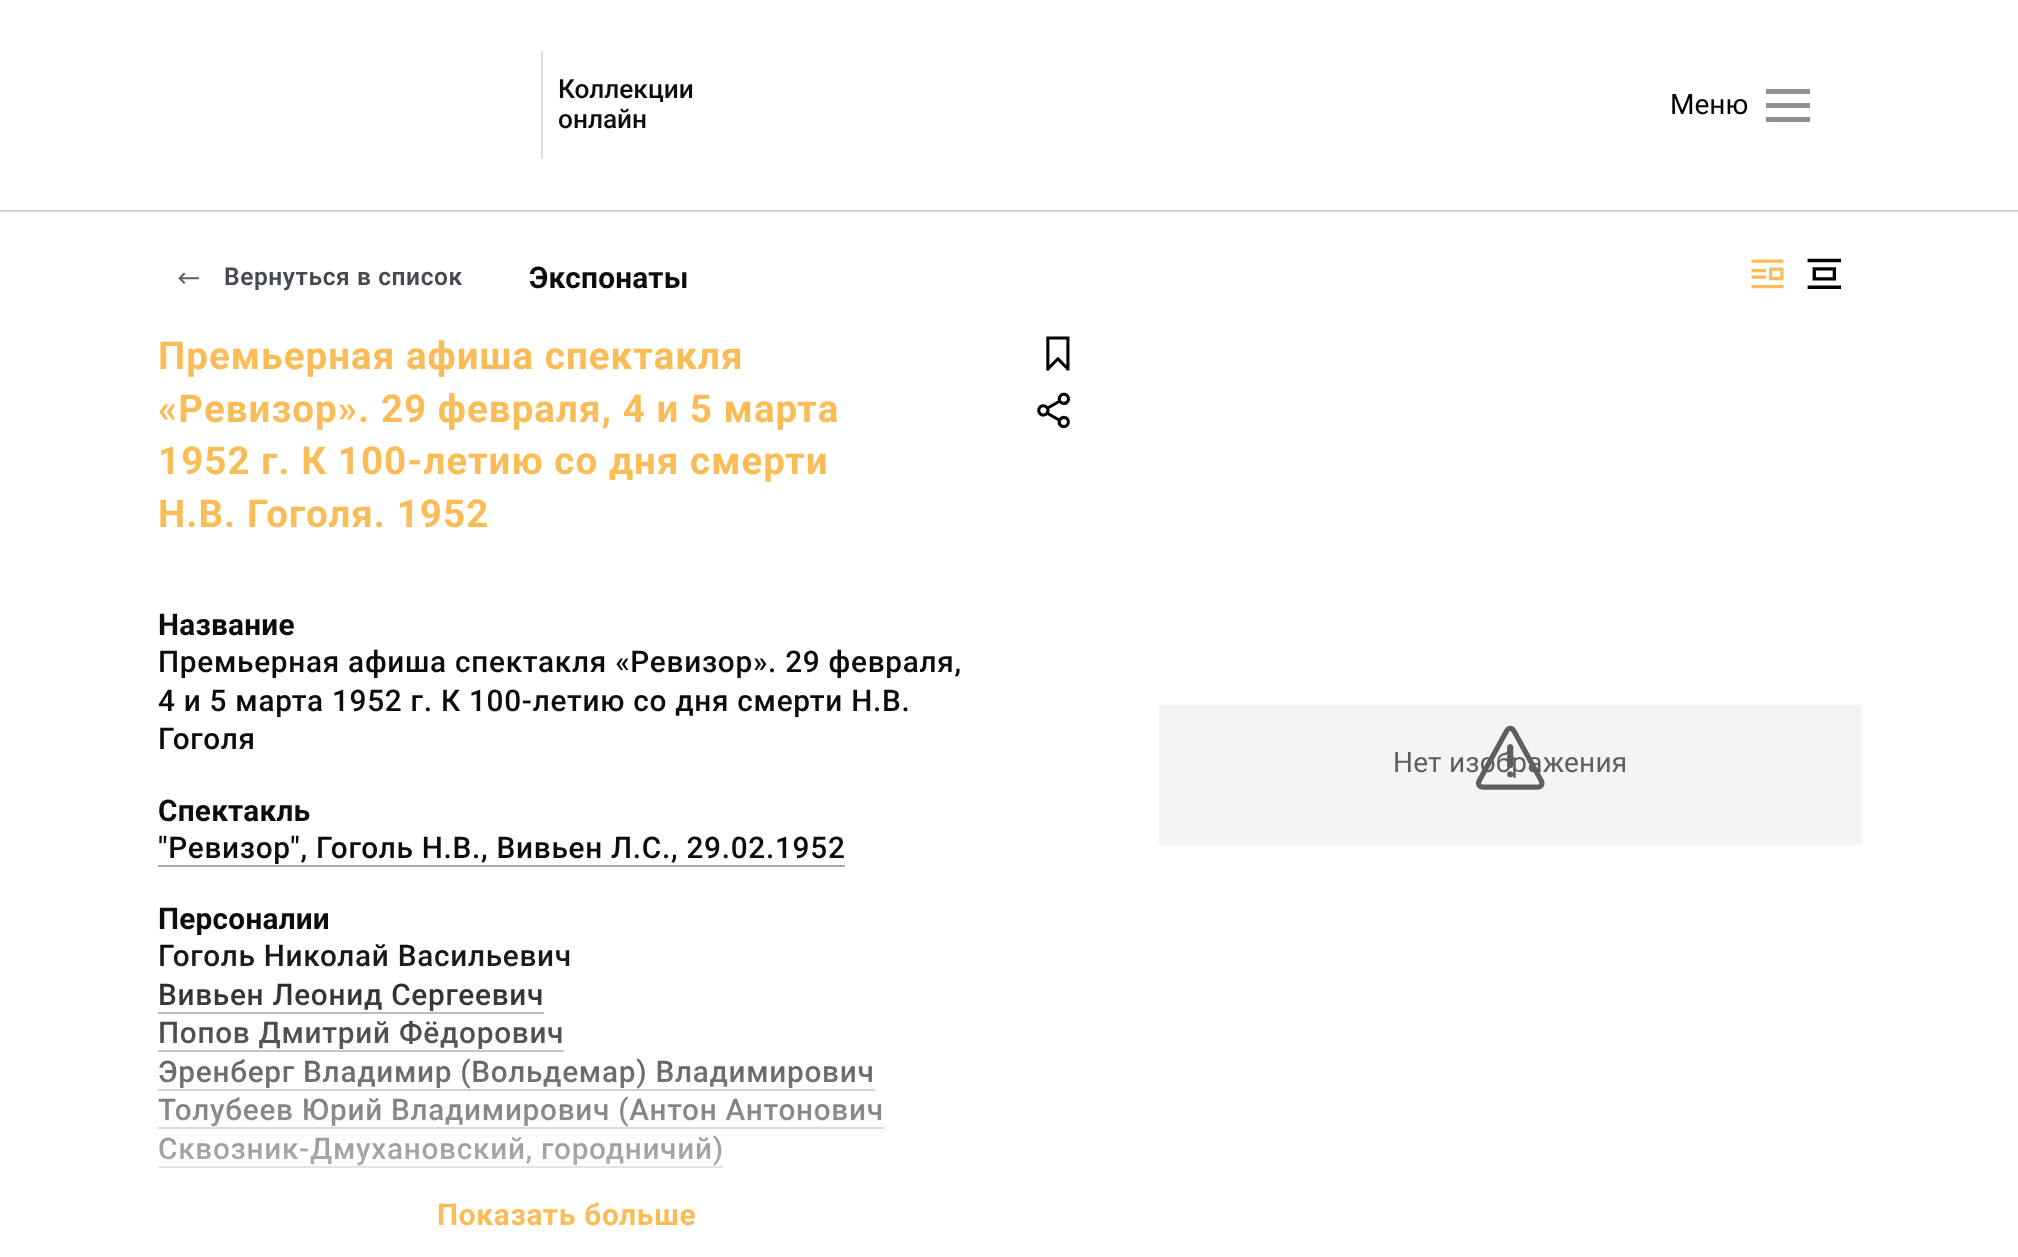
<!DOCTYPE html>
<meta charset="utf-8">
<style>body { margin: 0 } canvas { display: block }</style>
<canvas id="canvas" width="2018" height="1257"></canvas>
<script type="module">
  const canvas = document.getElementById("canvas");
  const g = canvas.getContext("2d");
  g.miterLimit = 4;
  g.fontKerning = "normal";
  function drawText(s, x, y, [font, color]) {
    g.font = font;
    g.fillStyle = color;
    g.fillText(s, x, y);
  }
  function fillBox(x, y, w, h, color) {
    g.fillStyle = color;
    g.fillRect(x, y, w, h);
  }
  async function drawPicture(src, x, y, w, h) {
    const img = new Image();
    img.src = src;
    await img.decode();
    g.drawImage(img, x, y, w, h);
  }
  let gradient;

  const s1 = ["500 26.25px Roboto", "#0A0D10"];
  const s2 = ["28px Roboto", "#000000"];
  const s3 = ["600 24.5px Roboto", "#444A50"];
  const s4 = ["bold 29.75px Roboto", "#0A0D10"];
  const s5 = ["bold 38.5px Roboto", "#FABC57"];
  const s6 = ["500 29.75px Roboto", "#0A0D10"];
  const s7 = ["bold 29.75px Roboto", "#FABC57"];
  const s8 = ["28px Roboto", "#5C5F62"];

  fillBox(0, 0, 2018, 1257, "#FFFFFF");
  fillBox(0, 210, 2018, 2, "#D3D3D3");
  fillBox(541, 51, 2, 108, "#DEDEDE");
  drawText("Коллекции", 558, 98, s1);
  drawText("онлайн", 558, 128, s1);
  fillBox(1766, 89, 44, 5, "#8E9195");
  drawText("Меню", 1670, 114, s2);
  fillBox(1766, 103, 44, 5, "#8E9195");
  fillBox(1766, 117, 44, 5, "#8E9195");
  await drawPicture("pic1.png", 178, 272, 21, 12);
  g.letterSpacing = "0.6px";
  drawText("Вернуться в список", 224, 285, s3);
  g.letterSpacing = "0.25px";
  drawText("Экспонаты", 529, 288, s4);
  await drawPicture("pic2.png", 1751, 259, 33, 30);
  await drawPicture("pic3.png", 1807, 258, 35, 31);
  g.letterSpacing = "1.05px";
  drawText("Премьерная афиша спектакля", 158, 369, s5);
  drawText("«Ревизор». 29 февраля, 4 и 5 марта", 158, 422, s5);
  drawText("1952 г. К 100-летию со дня смерти", 158, 474, s5);
  drawText("Н.В. Гоголя. 1952", 158, 527, s5);
  await drawPicture("pic4.png", 1046, 336, 24, 35);
  await drawPicture("pic5.png", 1037, 392, 33, 37);
  g.letterSpacing = "0.25px";
  drawText("Название", 158, 635, s4);
  g.letterSpacing = "0.73px";
  drawText("Премьерная афиша спектакля «Ревизор». 29 февраля,", 158, 672, s6);
  drawText("4 и 5 марта 1952 г. К 100-летию со дня смерти Н.В.", 158, 711, s6);
  drawText("Гоголя", 158, 749, s6);
  g.letterSpacing = "0.25px";
  drawText("Спектакль", 158, 821, s4);
  g.letterSpacing = "0.73px";
  drawText("\"Ревизор\", Гоголь Н.В., Вивьен Л.С., 29.02.1952", 158, 858, s6);
  fillBox(158, 865, 687, 2, "#ACACAC");
  g.letterSpacing = "0.25px";
  drawText("Персоналии", 158, 929, s4);
  g.letterSpacing = "0.73px";
  drawText("Гоголь Николай Васильевич", 158, 966, s6);
  drawText("Вивьен Леонид Сергеевич", 158, 1005, s6);
  fillBox(158, 1012, 386, 2, "#ACACAC");
  drawText("Попов Дмитрий Фёдорович", 158, 1043, s6);
  fillBox(158, 1050, 406, 2, "#ACACAC");
  drawText("Эренберг Владимир (Вольдемар) Владимирович", 158, 1082, s6);
  fillBox(158, 1089, 717, 2, "#ACACAC");
  drawText("Толубеев Юрий Владимирович (Антон Антонович", 158, 1120, s6);
  fillBox(158, 1127, 726, 2, "#ACACAC");
  drawText("Сквозник-Дмухановский, городничий)", 158, 1159, s6);
  fillBox(158, 1166, 565, 2, "#ACACAC");
  gradient = g.createLinearGradient(567, 943, 567, 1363);
  gradient.addColorStop(0, "rgba(255, 255, 255, 0.01)");
  gradient.addColorStop(0.8, "#FFFFFF");
  g.fillStyle = gradient;
  g.fillRect(158, 947, 726, 221);
  drawText("Показать больше", 437, 1225, s7);
  fillBox(1159, 705, 703, 140, "#F4F4F5");
  g.letterSpacing = "0.2px";
  drawText("Нет изображения", 1393, 772, s8);
  await drawPicture("pic6.png", 1476, 725, 69, 65);
</script>
